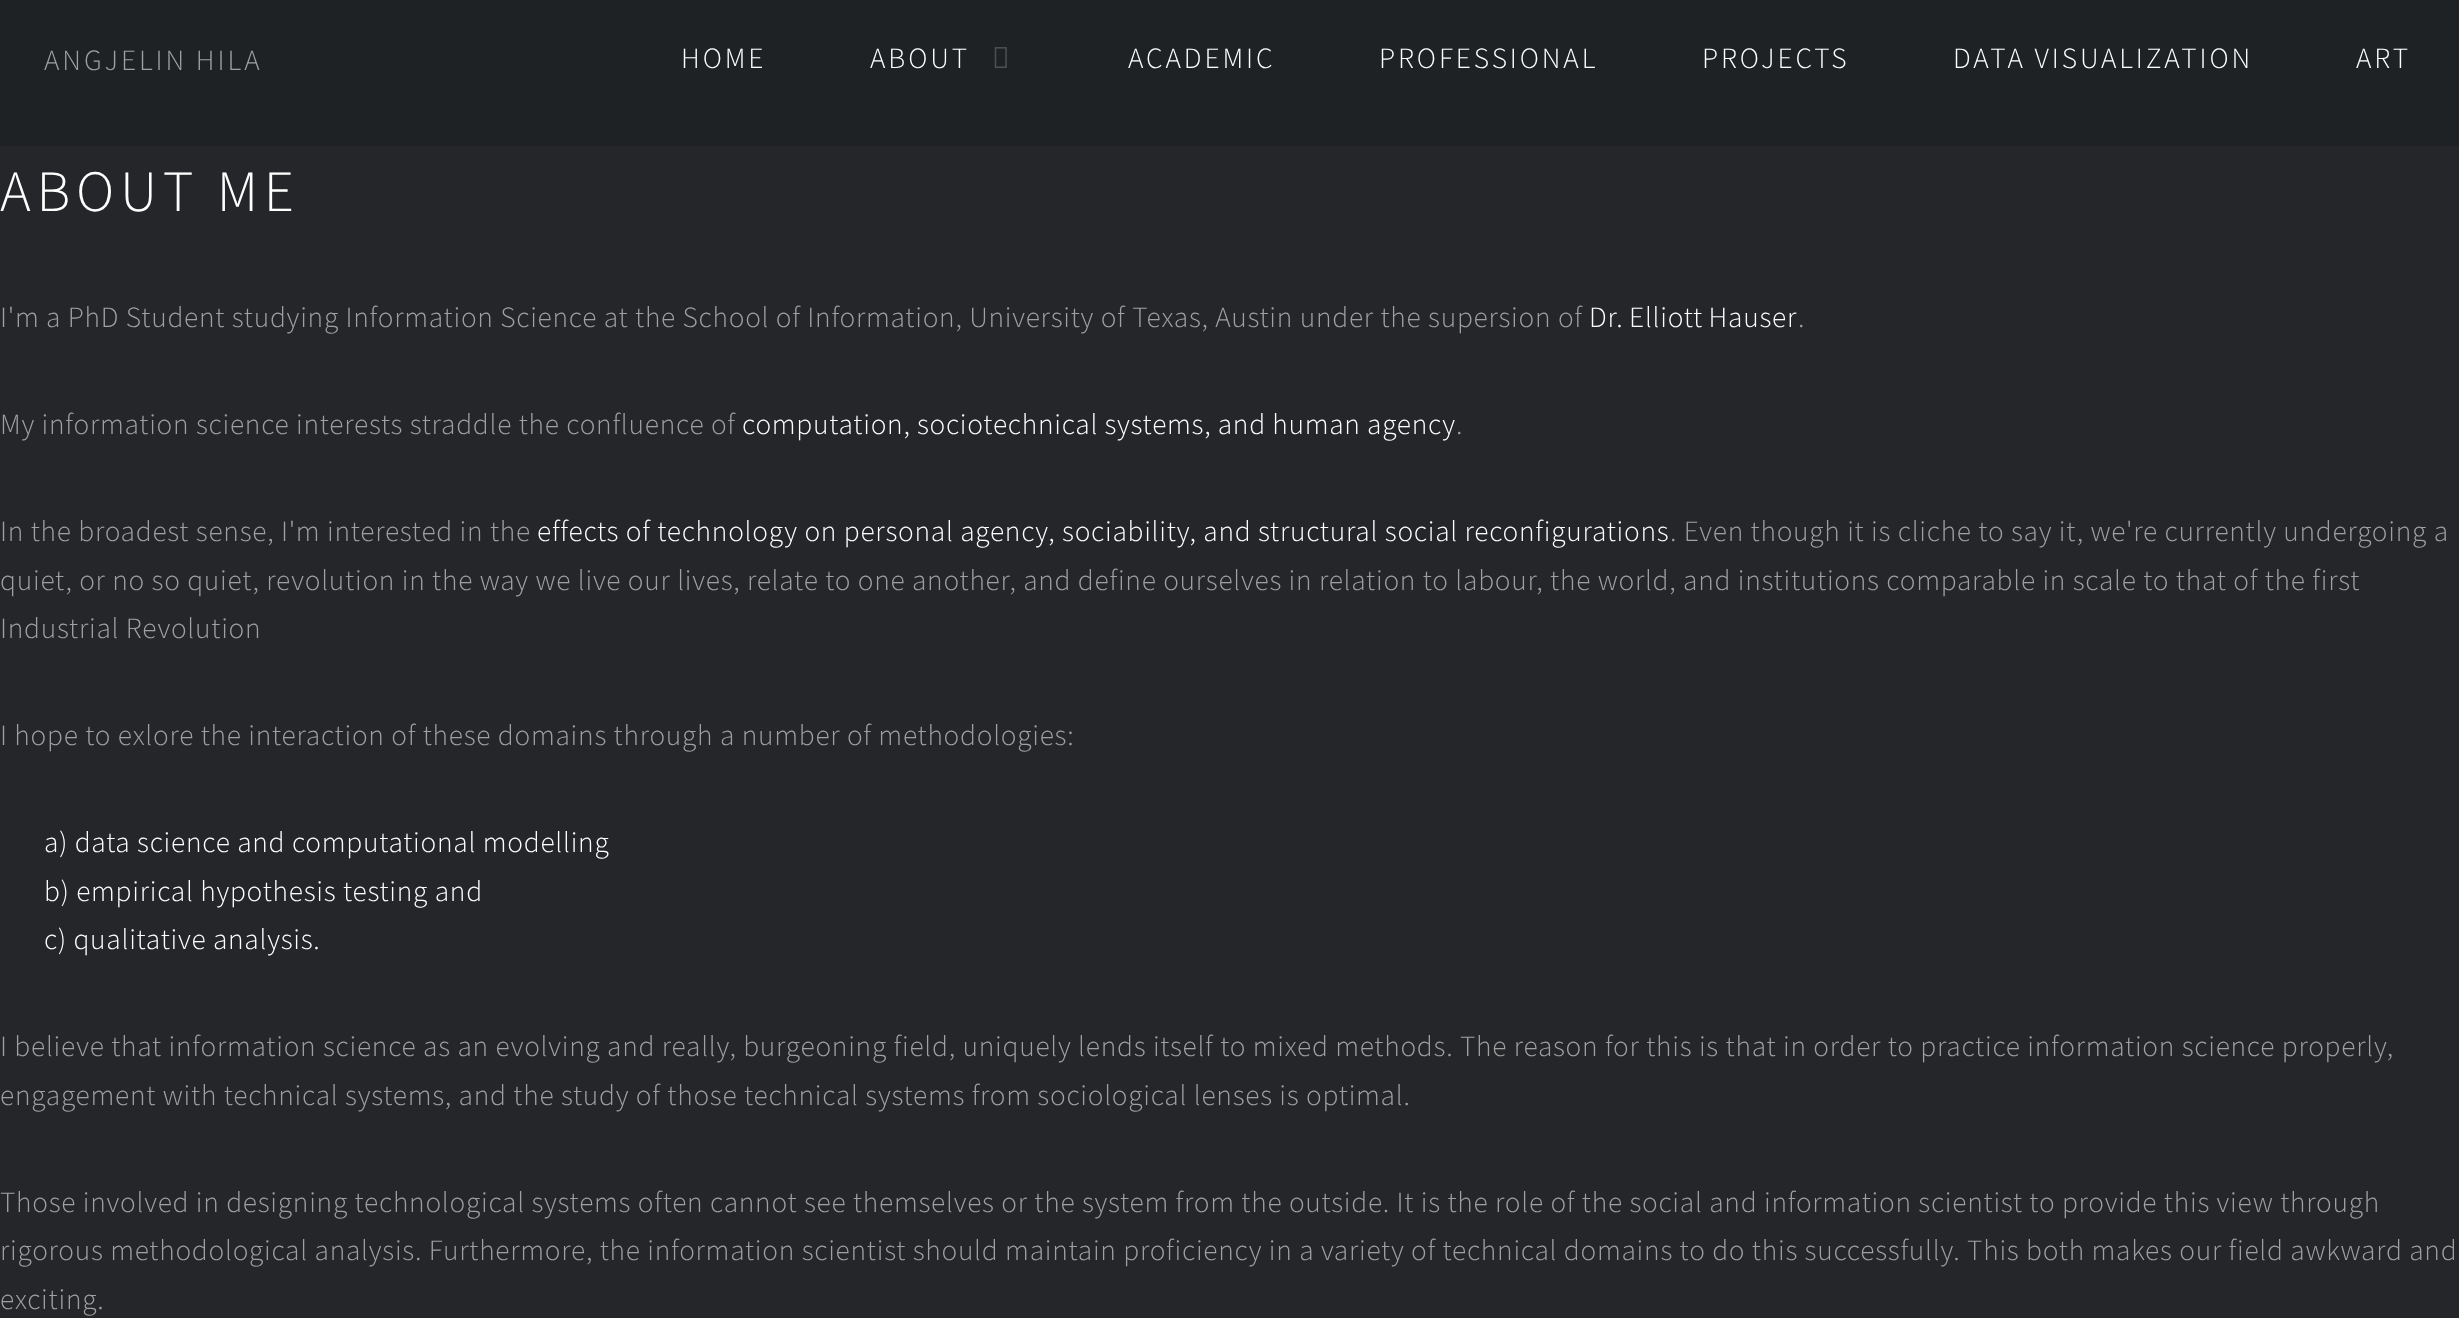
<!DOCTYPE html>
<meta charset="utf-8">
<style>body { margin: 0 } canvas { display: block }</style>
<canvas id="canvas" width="2459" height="1318"></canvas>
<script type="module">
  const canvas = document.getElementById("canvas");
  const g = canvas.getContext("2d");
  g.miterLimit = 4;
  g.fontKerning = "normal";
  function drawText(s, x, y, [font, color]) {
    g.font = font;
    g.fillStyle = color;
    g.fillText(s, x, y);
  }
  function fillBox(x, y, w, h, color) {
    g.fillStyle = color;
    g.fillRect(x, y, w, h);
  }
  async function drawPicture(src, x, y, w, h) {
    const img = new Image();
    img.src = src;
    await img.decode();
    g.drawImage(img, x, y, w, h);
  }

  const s1 = ["300 29.33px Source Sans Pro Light", "#A0A0A1"];
  const s2 = ["300 29.33px Source Sans Pro Light", "#FFFFFF"];
  const s3 = ["300 58.5px Source Sans Pro Light", "#FFFFFF"];

  fillBox(0, 0, 2459, 1318, "#242629");
  fillBox(0, 0, 2459, 146, "#1F2224");
  g.letterSpacing = "2.9px";
  drawText("ANGJELIN HILA", 44, 70, s1);
  drawText("HOME", 681, 68, s2);
  drawText("ABOUT", 870, 68, s2);
  await drawPicture("pic1.png", 994, 47, 13, 21);
  drawText("ACADEMIC", 1128, 68, s2);
  drawText("PROFESSIONAL", 1379, 68, s2);
  drawText("PROJECTS", 1702, 68, s2);
  drawText("DATA VISUALIZATION", 1953, 68, s2);
  drawText("ART", 2356, 68, s2);
  g.letterSpacing = "5.75px";
  drawText("ABOUT ME", 0, 211, s3);
  g.letterSpacing = "0.73px";
  drawText("I'm a PhD Student studying Information Science at the School of Information, University of Texas, Austin under the supersion of", 0, 327, s1);
  g.wordSpacing = "-1px";
  drawText("Dr. Elliott Hauser", 1589, 327, s2);
  g.wordSpacing = "0px";
  drawText(".", 1798, 327, s1);
  drawText("My information science interests straddle the confluence of", 0, 434, s1);
  g.wordSpacing = "-0.25px";
  drawText("computation, sociotechnical systems, and human agency", 742, 434, s2);
  g.wordSpacing = "0px";
  drawText(".", 1456, 434, s1);
  drawText("In the broadest sense, I'm interested in the", 0, 541, s1);
  drawText("effects of technology on personal agency, sociability, and structural social reconfigurations", 537, 541, s2);
  drawText(". Even though it is cliche to say it, we're currently undergoing a", 1670, 541, s1);
  drawText("quiet, or no so quiet, revolution in the way we live our lives, relate to one another, and define ourselves in relation to labour, the world, and institutions comparable in scale to that of the first", 0, 590, s1);
  drawText("Industrial Revolution", 0, 638, s1);
  drawText("I hope to exlore the interaction of these domains through a number of methodologies:", 0, 745, s1);
  drawText("a) data science and computational modelling", 44, 852, s2);
  drawText("b) empirical hypothesis testing and", 44, 901, s2);
  drawText("c) qualitative analysis.", 44, 949, s2);
  drawText("I believe that information science as an evolving and really, burgeoning field, uniquely lends itself to mixed methods. The reason for this is that in order to practice information science properly,", 0, 1056, s1);
  drawText("engagement with technical systems, and the study of those technical systems from sociological lenses is optimal.", 0, 1105, s1);
  drawText("Those involved in designing technological systems often cannot see themselves or the system from the outside. It is the role of the social and information scientist to provide this view through", 0, 1212, s1);
  drawText("rigorous methodological analysis. Furthermore, the information scientist should maintain proficiency in a variety of technical domains to do this successfully. This both makes our field awkward and", 0, 1260, s1);
  drawText("exciting.", 0, 1309, s1);
</script>
